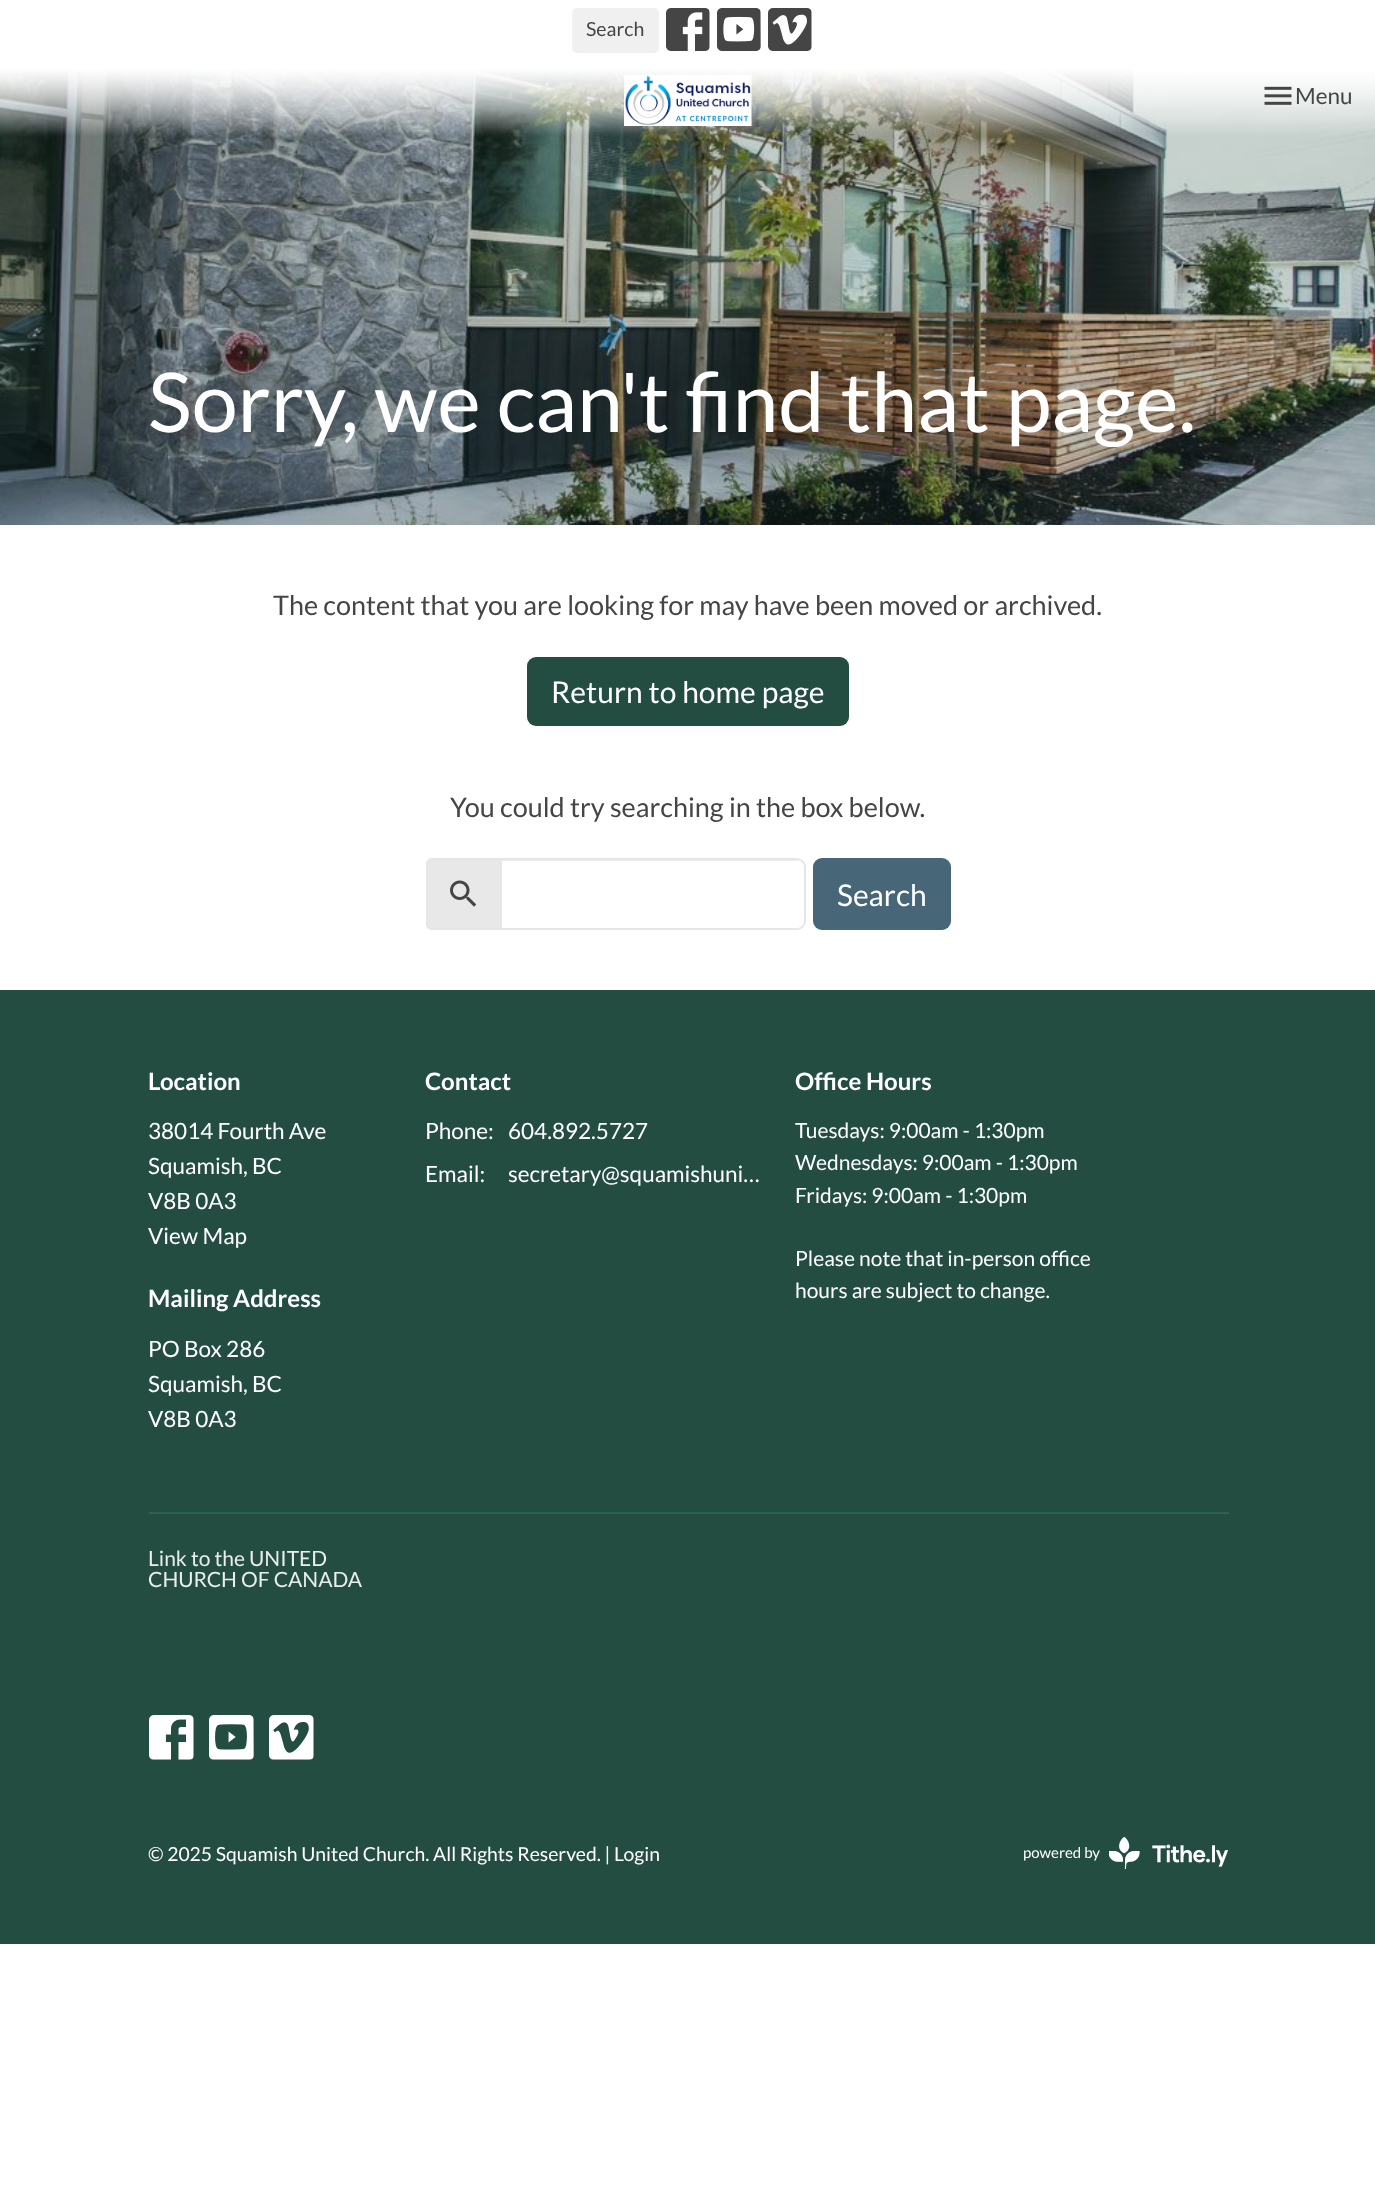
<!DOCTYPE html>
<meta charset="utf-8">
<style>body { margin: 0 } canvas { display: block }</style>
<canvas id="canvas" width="1375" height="2187"></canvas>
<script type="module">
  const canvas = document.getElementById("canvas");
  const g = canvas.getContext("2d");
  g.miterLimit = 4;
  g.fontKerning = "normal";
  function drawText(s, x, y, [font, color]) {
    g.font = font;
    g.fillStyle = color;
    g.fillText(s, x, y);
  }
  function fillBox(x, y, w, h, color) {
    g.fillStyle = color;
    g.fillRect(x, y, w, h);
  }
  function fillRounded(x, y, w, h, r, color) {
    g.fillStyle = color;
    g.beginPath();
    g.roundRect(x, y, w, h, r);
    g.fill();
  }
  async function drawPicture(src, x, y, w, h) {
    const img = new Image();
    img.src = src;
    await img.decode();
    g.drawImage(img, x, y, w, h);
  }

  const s1 = ["19.5px Lato", "#454545"];
  const s2 = ["22.5px Lato", "#454545"];
  const s3 = ["82.5px Lato", "#FFFFFF"];
  const s4 = ["27px Lato", "#454545"];
  const s5 = ["30px Lato", "#FFFFFF"];
  const s6 = ["bold 24px Lato", "#FFFFFF"];
  const s7 = ["22.5px Lato", "#FFFFFF"];
  const s8 = ["21px Lato", "#FFFFFF"];
  const s9 = ["21px Lato", "#E9EDEC"];
  const s10 = ["19.35px Lato", "#FFFFFF"];
  const s11 = ["15px Lato", "#FFFFFF"];

  fillBox(0, 0, 1375, 2187, "#FFFFFF");
  fillRounded(572, 8, 87, 45, 5, "#F0F0F0");
  drawText("Search", 586, 36, s1);
  await drawPicture("pic1.png", 666, 8, 44, 43);
  await drawPicture("pic2.png", 717, 8, 44, 43);
  await drawPicture("pic3.png", 768, 8, 44, 43);
  await drawPicture("pic6.png", 0, 60, 1375, 465);
  await drawPicture("pic4.png", 624, 75, 128, 51);
  await drawPicture("pic5.png", 1264, 86, 28, 19);
  drawText("Menu", 1295, 104, s2);
  drawText("Sorry, we can't find that page.", 148, 432, s3);
  drawText("The content that you are looking for may have been moved or archived.", 273, 615, s4);
  fillRounded(527, 657, 322, 69, 9, "#234D41");
  drawText("Return to home page", 551, 703, s5);
  drawText("You could try searching in the box below.", 450, 817, s4);
  g.fillStyle = "#E8E8E8";
  g.beginPath();
  g.roundRect(426, 858, 74, 72, [6, 0, 0, 6]);
  g.fill();
  g.fillStyle = "#E6E6E6";
  g.beginPath();
  g.moveTo(432, 858);
  g.lineTo(500, 858);
  g.lineTo(500, 930);
  g.lineTo(432, 930);
  g.bezierCurveTo(429, 930, 426, 927, 426, 924);
  g.lineTo(426, 864);
  g.bezierCurveTo(426, 861, 429, 858, 432, 858);
  g.closePath();
  g.moveTo(432, 860);
  g.lineTo(500, 860);
  g.lineTo(500, 928);
  g.lineTo(432, 928);
  g.bezierCurveTo(430, 928, 428, 926, 428, 924);
  g.lineTo(428, 864);
  g.bezierCurveTo(428, 862, 430, 860, 432, 860);
  g.closePath();
  g.fill("evenodd");
  await drawPicture("pic7.png", 450, 880, 27, 27);
  g.fillStyle = "#ECECEC";
  g.beginPath();
  g.moveTo(501, 861);
  g.lineTo(796, 861);
  g.bezierCurveTo(801, 861, 804, 864, 804, 868);
  g.bezierCurveTo(804, 864, 800, 860, 796, 860);
  g.lineTo(501, 860);
  g.closePath();
  g.fill();
  g.beginPath();
  g.roundRect(501, 859, 304, 70, [0, 8, 8, 0]);
  g.strokeStyle = "#E6E6E6";
  g.lineWidth = 2;
  g.stroke();
  fillRounded(813, 858, 138, 72, 9, "#476678");
  drawText("Search", 837, 906, s5);
  fillBox(0, 990, 1375, 954, "#234D41");
  drawText("Location", 148, 1090, s6);
  drawText("38014 Fourth Ave", 148, 1139, s7);
  drawText("Squamish, BC", 148, 1174, s7);
  drawText("V8B 0A3", 148, 1209, s7);
  drawText("View Map", 148, 1244, s7);
  drawText("Mailing Address", 148, 1307, s6);
  drawText("PO Box 286", 148, 1357, s7);
  drawText("Squamish, BC", 148, 1392, s7);
  drawText("V8B 0A3", 148, 1427, s7);
  drawText("Contact", 425, 1090, s6);
  drawText("Phone:", 425, 1139, s7);
  drawText("604.892.5727", 508, 1139, s7);
  drawText("Email:", 425, 1182, s7);
  g.save();
  g.beginPath();
  g.rect(509, 1157, 256, 34);
  g.clip();
  drawText("secretary@squamishuni…", 508, 1182, s7);
  g.restore();
  drawText("Office Hours", 795, 1090, s6);
  drawText("Tuesdays: 9:00am - 1:30pm", 795, 1138, s8);
  drawText("Wednesdays: 9:00am - 1:30pm", 795, 1170, s8);
  drawText("Fridays: 9:00am - 1:30pm", 795, 1203, s8);
  drawText("Please note that in-person office", 795, 1266, s8);
  drawText("hours are subject to change.", 795, 1298, s8);
  fillBox(149, 1512, 1080, 2, "#2D6253");
  drawText("Link to the UNITED", 148, 1566, s9);
  drawText("CHURCH OF CANADA", 148, 1587, s9);
  await drawPicture("pic8.png", 149, 1715, 45, 45);
  await drawPicture("pic9.png", 209, 1715, 45, 45);
  await drawPicture("pic10.png", 269, 1715, 45, 45);
  drawText("© 2025 Squamish United Church. All Rights Reserved. |", 148, 1861, s10);
  drawText("Login", 614, 1861, s10);
  drawText("powered by", 1023, 1858, s11);
  await drawPicture("pic11.png", 1109, 1837, 119, 32);
</script>
